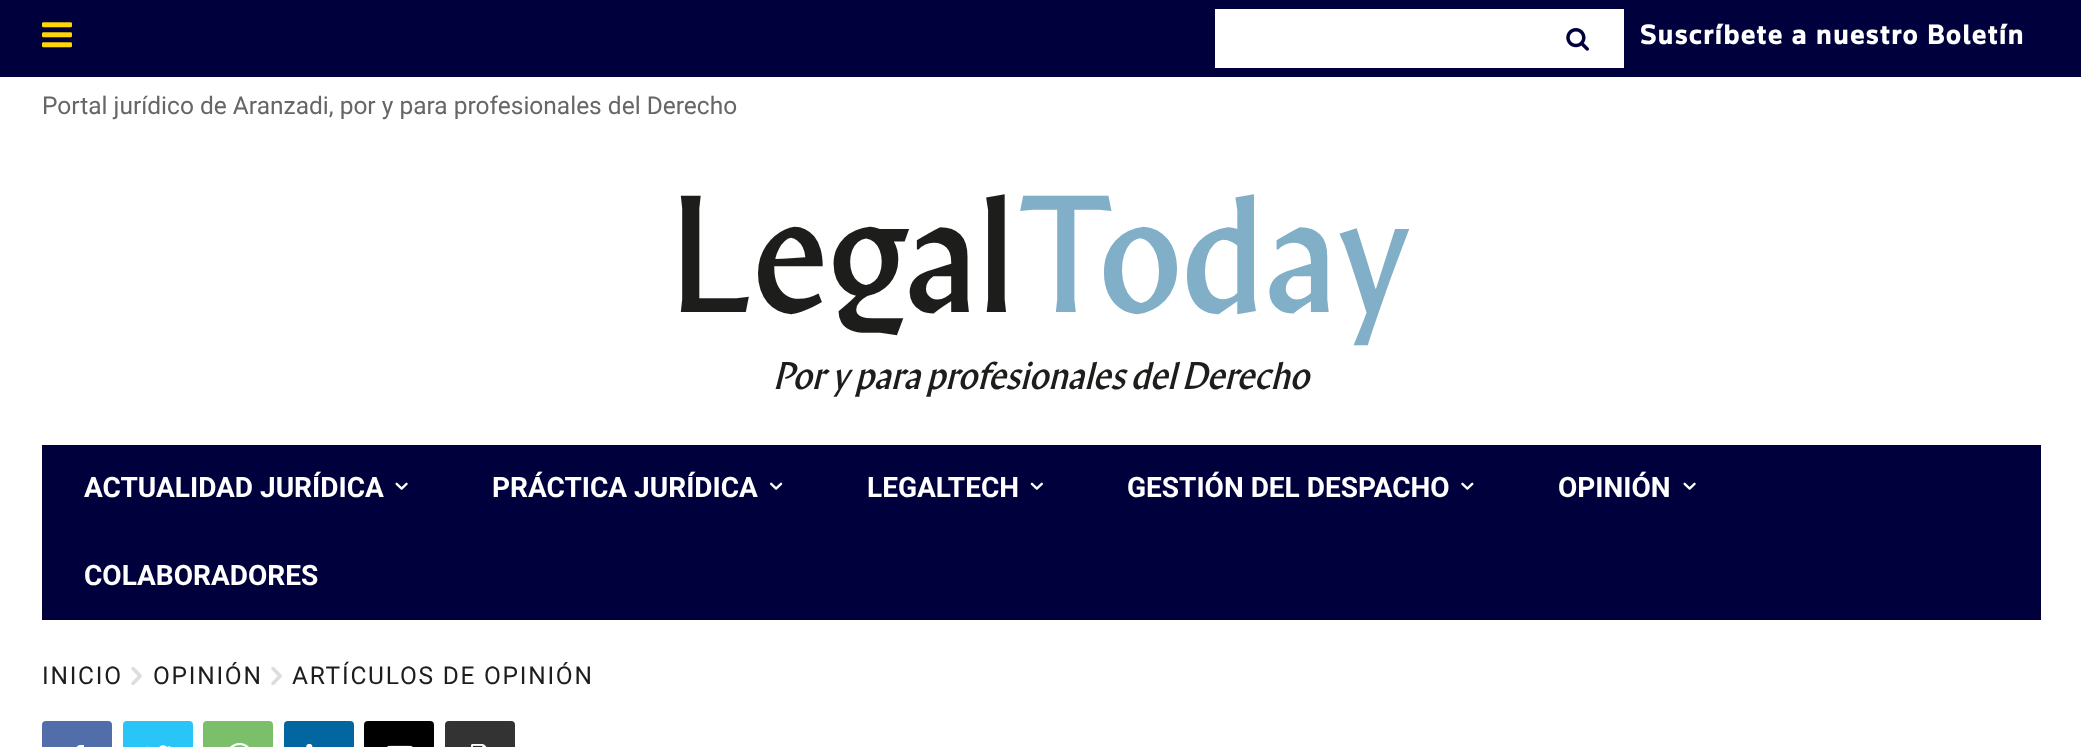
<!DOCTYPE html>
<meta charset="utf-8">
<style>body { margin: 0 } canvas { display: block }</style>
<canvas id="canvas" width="2081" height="747"></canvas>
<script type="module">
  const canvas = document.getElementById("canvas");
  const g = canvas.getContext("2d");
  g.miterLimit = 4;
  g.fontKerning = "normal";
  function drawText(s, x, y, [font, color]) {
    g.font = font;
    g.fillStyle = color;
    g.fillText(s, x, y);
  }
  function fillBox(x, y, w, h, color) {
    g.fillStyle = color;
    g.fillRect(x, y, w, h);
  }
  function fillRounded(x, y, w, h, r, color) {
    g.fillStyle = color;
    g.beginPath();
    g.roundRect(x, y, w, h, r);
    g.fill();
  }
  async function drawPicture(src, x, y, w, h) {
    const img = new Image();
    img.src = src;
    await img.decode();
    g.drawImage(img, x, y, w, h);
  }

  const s1 = ["bold 28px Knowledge", "#FFFFFF"];
  const s2 = ["24.5px Roboto", "#666666"];
  const s3 = ["166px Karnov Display", "#1D1D1B"];
  const s4 = ["166px Karnov Display", "#81AFC8"];
  const s5 = ["italic 38.5px Karnov Display", "#1D1D1B"];
  const s6 = ["bold 28px Roboto", "#FFFFFF"];
  const s7 = ["24.5px Roboto", "#1D1D1B"];

  fillBox(0, 0, 2081, 747, "#FFFFFF");
  fillBox(0, 0, 2081, 77, "#00003C");
  await drawPicture("pic1.png", 42, 22, 30, 26);
  fillBox(1215, 9, 409, 59, "#FFFFFF");
  await drawPicture("pic2.png", 1566, 28, 23, 23);
  g.letterSpacing = "1.75px";
  drawText("Suscríbete a nuestro Boletín", 1640, 44, s1);
  g.letterSpacing = "0px";
  drawText("Portal jurídico de Aranzadi, por y para profesionales del Derecho", 42, 114, s2);
  drawText("Legal", 670, 312, s3);
  drawText("Today", 1016, 312, s4);
  drawText("Por y para profesionales del Derecho", 773, 389, s5);
  fillBox(42, 445, 1999, 175, "#00003C");
  drawText("ACTUALIDAD JURÍDICA", 84, 497, s6);
  await drawPicture("pic3.png", 395, 482, 13, 8);
  drawText("PRÁCTICA JURÍDICA", 492, 497, s6);
  await drawPicture("pic4.png", 770, 482, 13, 8);
  drawText("LEGALTECH", 867, 497, s6);
  await drawPicture("pic5.png", 1030, 482, 13, 8);
  drawText("GESTIÓN DEL DESPACHO", 1127, 497, s6);
  await drawPicture("pic6.png", 1461, 482, 13, 8);
  drawText("OPINIÓN", 1558, 497, s6);
  await drawPicture("pic3.png", 1683, 482, 13, 8);
  drawText("COLABORADORES", 84, 585, s6);
  g.letterSpacing = "1.75px";
  drawText("INICIO", 42, 684, s7);
  await drawPicture("pic7.png", 131, 666, 11, 19);
  drawText("OPINIÓN", 153, 684, s7);
  await drawPicture("pic7.png", 271, 666, 11, 19);
  drawText("ARTÍCULOS DE OPINIÓN", 292, 684, s7);
  fillRounded(42, 721, 70, 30, 4, "#516EAB");
  await drawPicture("pic8.png", 76, 745, 8, 2);
  fillRounded(123, 721, 70, 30, 4, "#29C5F6");
  await drawPicture("pic9.png", 146, 745, 25, 2);
  fillRounded(203, 721, 70, 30, 4, "#7BBF6A");
  await drawPicture("pic10.png", 230, 742, 19, 5);
  fillRounded(284, 721, 70, 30, 4, "#0266A0");
  await drawPicture("pic11.png", 306, 743, 7, 4);
  fillRounded(364, 721, 70, 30, 4, "#000000");
  await drawPicture("pic12.png", 387, 745, 26, 2);
  fillRounded(445, 721, 70, 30, 4, "#333333");
  await drawPicture("pic13.png", 471, 744, 16, 3);
</script>
